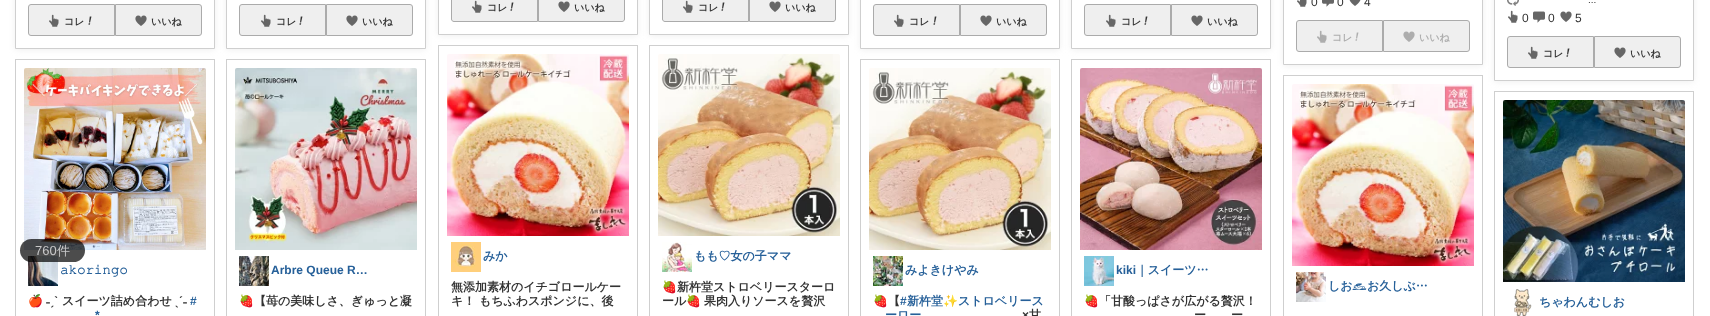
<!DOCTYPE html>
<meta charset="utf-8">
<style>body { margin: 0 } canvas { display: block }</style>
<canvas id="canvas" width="1710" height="316"></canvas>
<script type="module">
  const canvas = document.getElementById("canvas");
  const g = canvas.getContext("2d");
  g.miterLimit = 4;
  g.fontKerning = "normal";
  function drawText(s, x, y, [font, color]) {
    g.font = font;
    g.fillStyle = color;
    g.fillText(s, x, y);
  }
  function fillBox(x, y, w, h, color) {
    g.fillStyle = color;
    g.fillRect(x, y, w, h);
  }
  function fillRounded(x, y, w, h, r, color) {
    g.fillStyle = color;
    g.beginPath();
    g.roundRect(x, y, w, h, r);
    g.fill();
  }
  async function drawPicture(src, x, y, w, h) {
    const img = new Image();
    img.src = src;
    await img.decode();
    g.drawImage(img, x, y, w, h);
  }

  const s1 = ["bold 10px WenQuanYi Zen Hei", "#333333"];
  const s2 = ["bold 12px FreeSerif", "#266099"];
  const s3 = ["bold 12px Noto Color Emoji", "#333333"];
  const s4 = ["bold 12px Liberation Sans", "#333333"];
  const s5 = ["bold 12px WenQuanYi Zen Hei", "#333333"];
  const s6 = ["bold 12px Liberation Sans", "#266099"];
  const s7 = ["bold 12px WenQuanYi Zen Hei", "#266099"];
  const s8 = ["bold 12px Noto Color Emoji", "#266099"];
  const s9 = ["12px Liberation Sans", "#333333"];
  const s10 = ["bold 10px WenQuanYi Zen Hei", "#ADADAD"];
  const s11 = ["bold 12px Noto Sans Egyptian Hieroglyphs", "#266099"];
  const s12 = ["10px Liberation Sans", "#333333"];
  const s13 = ["13px Liberation Sans", "#C8C8C9"];
  const s14 = ["500 13px WenQuanYi Zen Hei", "#C8C8C9"];

  fillBox(0, 0, 1710, 316, "#FFFFFF");
  g.fillStyle = "#EFEFEF";
  g.filter = "blur(3px)";
  g.beginPath();
  g.roundRect(15, -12, 200, 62, 3);
  g.fill();
  g.filter = "none";
  g.fillStyle = "#FFFFFF";
  g.beginPath();
  g.rect(15.5, -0.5, 199, 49);
  g.fill();
  g.strokeStyle = "#CFCFCF";
  g.stroke();
  g.fillStyle = "#EFEFEF";
  g.beginPath();
  g.roundRect(28.5, 4.5, 86, 31, [2.5, 0, 0, 2.5]);
  g.fill();
  g.strokeStyle = "#ABABAB";
  g.stroke();
  await drawPicture("pic1.png", 49, 14, 10, 13);
  drawText("コレ", 64, 25, s1);
  await drawPicture("pic2.png", 88, 16, 4, 9);
  g.fillStyle = "#EFEFEF";
  g.beginPath();
  g.roundRect(115.5, 4.5, 86, 31, [0, 2.5, 2.5, 0]);
  g.fill();
  g.stroke();
  await drawPicture("pic3.png", 135, 15, 12, 11);
  drawText("いいね", 151, 25, s1);
  g.strokeStyle = "#CFCFCF";
  g.strokeRect(15.5, 59.5, 199, 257);
  await drawPicture("pic4.png", 24, 68, 182, 182);
  await drawPicture("pic5.png", 28, 256, 30, 30);
  drawText("𝚊𝚔𝚘𝚛𝚒𝚗𝚐𝚘", 60, 274, s2);
  drawText("🍎", 28, 305, s3);
  drawText("˗ˏˋ", 46, 305, s4);
  drawText("スイーツ詰め合わせ", 62, 305, s5);
  drawText("ˎˊ˗", 175, 305, s4);
  drawText("#", 190, 305, s6);
  drawText("*", 95, 319, s6);
  g.fillStyle = "#EFEFEF";
  g.filter = "blur(3px)";
  g.beginPath();
  g.roundRect(226, -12, 200, 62, 3);
  g.fill();
  g.filter = "none";
  g.fillStyle = "#FFFFFF";
  g.beginPath();
  g.rect(226.5, -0.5, 199, 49);
  g.fill();
  g.stroke();
  g.fillStyle = "#EFEFEF";
  g.beginPath();
  g.roundRect(239.5, 4.5, 86, 31, [2.5, 0, 0, 2.5]);
  g.fill();
  g.strokeStyle = "#ABABAB";
  g.stroke();
  await drawPicture("pic1.png", 261, 14, 10, 13);
  drawText("コレ", 276, 25, s1);
  await drawPicture("pic2.png", 299, 16, 4, 9);
  g.fillStyle = "#EFEFEF";
  g.beginPath();
  g.roundRect(326.5, 4.5, 86, 31, [0, 2.5, 2.5, 0]);
  g.fill();
  g.stroke();
  await drawPicture("pic3.png", 346, 15, 12, 11);
  drawText("いいね", 362, 25, s1);
  g.strokeStyle = "#CFCFCF";
  g.strokeRect(226.5, 59.5, 199, 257);
  await drawPicture("pic6.png", 235, 68, 182, 182);
  await drawPicture("pic7.png", 239, 256, 30, 30);
  drawText("Arbre Queue R…", 271, 274, s6);
  drawText("🍓", 239, 305, s3);
  drawText("【苺の美味しさ、ぎゅっと凝", 254, 305, s5);
  g.fillStyle = "#EFEFEF";
  g.filter = "blur(3px)";
  g.beginPath();
  g.roundRect(438, -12, 200, 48, 3);
  g.fill();
  g.filter = "none";
  g.fillStyle = "#FFFFFF";
  g.beginPath();
  g.rect(438.5, -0.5, 199, 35);
  g.fill();
  g.stroke();
  g.fillStyle = "#EFEFEF";
  g.beginPath();
  g.moveTo(454, -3.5);
  g.lineTo(537.5, -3.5);
  g.lineTo(537.5, 21.5);
  g.lineTo(454, 21.5);
  g.bezierCurveTo(452.5, 21.5, 451.5, 20.5, 451.5, 19);
  g.lineTo(451.5, -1);
  g.bezierCurveTo(451.5, -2.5, 452.5, -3.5, 454, -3.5);
  g.closePath();
  g.fill();
  g.strokeStyle = "#ABABAB";
  g.stroke();
  await drawPicture("pic1.png", 472, 0, 10, 13);
  drawText("コレ", 487, 11, s1);
  await drawPicture("pic2.png", 510, 2, 4, 9);
  g.fillStyle = "#EFEFEF";
  g.beginPath();
  g.moveTo(538.5, -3.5);
  g.lineTo(622, -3.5);
  g.bezierCurveTo(623.5, -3.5, 624.5, -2.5, 624.5, -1);
  g.lineTo(624.5, 19);
  g.bezierCurveTo(624.5, 20.5, 623.5, 21.5, 622, 21.5);
  g.lineTo(538.5, 21.5);
  g.closePath();
  g.fill();
  g.stroke();
  await drawPicture("pic3.png", 558, 1, 12, 11);
  drawText("いいね", 574, 11, s1);
  g.strokeStyle = "#CFCFCF";
  g.strokeRect(438.5, 45.5, 199, 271);
  await drawPicture("pic8.png", 447, 54, 182, 182);
  await drawPicture("pic9.png", 451, 242, 30, 30);
  drawText("みか", 483, 260, s7);
  drawText("無添加素材のイチゴロールケー", 451, 291, s5);
  drawText("キ！ もちふわスポンジに、後", 451, 305, s5);
  g.fillStyle = "#EFEFEF";
  g.filter = "blur(3px)";
  g.beginPath();
  g.roundRect(649, -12, 200, 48, 3);
  g.fill();
  g.filter = "none";
  g.fillStyle = "#FFFFFF";
  g.beginPath();
  g.rect(649.5, -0.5, 199, 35);
  g.fill();
  g.stroke();
  g.fillStyle = "#EFEFEF";
  g.beginPath();
  g.moveTo(665, -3.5);
  g.lineTo(748.5, -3.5);
  g.lineTo(748.5, 21.5);
  g.lineTo(665, 21.5);
  g.bezierCurveTo(663.5, 21.5, 662.5, 20.5, 662.5, 19);
  g.lineTo(662.5, -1);
  g.bezierCurveTo(662.5, -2.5, 663.5, -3.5, 665, -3.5);
  g.closePath();
  g.fill();
  g.strokeStyle = "#ABABAB";
  g.stroke();
  await drawPicture("pic1.png", 683, 0, 10, 13);
  drawText("コレ", 698, 11, s1);
  await drawPicture("pic2.png", 721, 2, 4, 9);
  g.fillStyle = "#EFEFEF";
  g.beginPath();
  g.moveTo(749.5, -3.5);
  g.lineTo(833, -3.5);
  g.bezierCurveTo(834.5, -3.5, 835.5, -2.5, 835.5, -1);
  g.lineTo(835.5, 19);
  g.bezierCurveTo(835.5, 20.5, 834.5, 21.5, 833, 21.5);
  g.lineTo(749.5, 21.5);
  g.closePath();
  g.fill();
  g.stroke();
  await drawPicture("pic3.png", 769, 1, 12, 11);
  drawText("いいね", 785, 11, s1);
  g.strokeStyle = "#CFCFCF";
  g.strokeRect(649.5, 45.5, 199, 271);
  await drawPicture("pic10.png", 658, 54, 182, 182);
  await drawPicture("pic11.png", 662, 242, 30, 30);
  drawText("もも♡女の子ママ", 694, 260, s7);
  drawText("🍓", 662, 291, s3);
  drawText("新杵堂ストロベリースターロ", 677, 291, s5);
  drawText("ール", 662, 305, s5);
  drawText("🍓", 686, 305, s3);
  drawText("果肉入りソースを贅沢", 704, 305, s5);
  g.fillStyle = "#EFEFEF";
  g.filter = "blur(3px)";
  g.beginPath();
  g.roundRect(860, -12, 200, 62, 3);
  g.fill();
  g.filter = "none";
  g.fillStyle = "#FFFFFF";
  g.beginPath();
  g.rect(860.5, -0.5, 199, 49);
  g.fill();
  g.stroke();
  g.fillStyle = "#EFEFEF";
  g.beginPath();
  g.roundRect(873.5, 4.5, 86, 31, [2.5, 0, 0, 2.5]);
  g.fill();
  g.strokeStyle = "#ABABAB";
  g.stroke();
  await drawPicture("pic1.png", 894, 14, 10, 13);
  drawText("コレ", 909, 25, s1);
  await drawPicture("pic2.png", 933, 16, 4, 9);
  g.fillStyle = "#EFEFEF";
  g.beginPath();
  g.roundRect(960.5, 4.5, 86, 31, [0, 2.5, 2.5, 0]);
  g.fill();
  g.stroke();
  await drawPicture("pic3.png", 980, 15, 12, 11);
  drawText("いいね", 996, 25, s1);
  g.strokeStyle = "#CFCFCF";
  g.strokeRect(860.5, 59.5, 199, 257);
  await drawPicture("pic12.png", 869, 68, 182, 182);
  await drawPicture("pic13.png", 873, 256, 30, 30);
  drawText("みよきけやみ", 905, 274, s7);
  drawText("🍓", 873, 305, s3);
  drawText("【", 888, 305, s5);
  drawText("#", 900, 305, s6);
  drawText("新杵堂", 907, 305, s7);
  drawText("✨", 943, 305, s8);
  drawText("ストロベリース", 958, 305, s7);
  drawText("ーロー", 885, 319, s7);
  drawText("×", 1022, 319, s4);
  drawText("甘", 1029, 319, s5);
  g.fillStyle = "#EFEFEF";
  g.filter = "blur(3px)";
  g.beginPath();
  g.roundRect(1071, -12, 200, 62, 3);
  g.fill();
  g.filter = "none";
  g.fillStyle = "#FFFFFF";
  g.beginPath();
  g.rect(1071.5, -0.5, 199, 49);
  g.fill();
  g.stroke();
  g.fillStyle = "#EFEFEF";
  g.beginPath();
  g.roundRect(1084.5, 4.5, 86, 31, [2.5, 0, 0, 2.5]);
  g.fill();
  g.strokeStyle = "#ABABAB";
  g.stroke();
  await drawPicture("pic1.png", 1106, 14, 10, 13);
  drawText("コレ", 1121, 25, s1);
  await drawPicture("pic2.png", 1144, 16, 4, 9);
  g.fillStyle = "#EFEFEF";
  g.beginPath();
  g.roundRect(1171.5, 4.5, 86, 31, [0, 2.5, 2.5, 0]);
  g.fill();
  g.stroke();
  await drawPicture("pic3.png", 1191, 15, 12, 11);
  drawText("いいね", 1207, 25, s1);
  g.strokeStyle = "#CFCFCF";
  g.strokeRect(1071.5, 59.5, 199, 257);
  await drawPicture("pic14.png", 1080, 68, 182, 182);
  await drawPicture("pic15.png", 1084, 256, 30, 30);
  drawText("kiki", 1116, 274, s6);
  drawText("｜スイーツ…", 1136, 274, s7);
  drawText("🍓", 1084, 305, s3);
  drawText("「甘酸っぱさが広がる贅沢！", 1099, 305, s5);
  drawText("ー", 1194, 319, s5);
  drawText("ー", 1231, 319, s5);
  g.fillStyle = "#EFEFEF";
  g.filter = "blur(3px)";
  g.beginPath();
  g.roundRect(1283, -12, 200, 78, 3);
  g.fill();
  g.filter = "none";
  g.fillStyle = "#FFFFFF";
  g.beginPath();
  g.rect(1283.5, -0.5, 199, 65);
  g.fill();
  g.stroke();
  await drawPicture("pic16.png", 1297, 0, 10, 7);
  drawText("0", 1311, 6, s9);
  await drawPicture("pic17.png", 1322, 0, 12, 7);
  drawText("0", 1337, 6, s9);
  await drawPicture("pic18.png", 1349, 0, 12, 6);
  drawText("4", 1364, 6, s9);
  g.fillStyle = "#EFEFEF";
  g.beginPath();
  g.roundRect(1296.5, 20.5, 86, 31, [2.5, 0, 0, 2.5]);
  g.fill();
  g.strokeStyle = "#ABABAB";
  g.stroke();
  await drawPicture("pic19.png", 1317, 30, 10, 13);
  drawText("コレ", 1332, 41, s10);
  await drawPicture("pic20.png", 1355, 32, 4, 9);
  g.fillStyle = "#EFEFEF";
  g.beginPath();
  g.roundRect(1383.5, 20.5, 86, 31, [0, 2.5, 2.5, 0]);
  g.fill();
  g.stroke();
  await drawPicture("pic21.png", 1403, 31, 12, 11);
  drawText("いいね", 1419, 41, s10);
  g.strokeStyle = "#CFCFCF";
  g.strokeRect(1283.5, 75.5, 199, 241);
  await drawPicture("pic8.png", 1292, 84, 182, 182);
  await drawPicture("pic22.png", 1296, 272, 30, 30);
  drawText("しお", 1328, 290, s7);
  drawText("𓃺", 1352, 290, s11);
  drawText("お久しぶ…", 1367, 290, s7);
  g.fillStyle = "#EFEFEF";
  g.filter = "blur(3px)";
  g.beginPath();
  g.roundRect(1494, -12, 200, 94, 3);
  g.fill();
  g.filter = "none";
  g.fillStyle = "#FFFFFF";
  g.beginPath();
  g.rect(1494.5, -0.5, 199, 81);
  g.fill();
  g.stroke();
  await drawPicture("pic23.png", 1507, 0, 12, 6);
  drawText("...", 1588, 3, s12);
  await drawPicture("pic24.png", 1508, 10, 10, 13);
  drawText("0", 1522, 22, s9);
  await drawPicture("pic25.png", 1533, 11, 12, 12);
  drawText("0", 1548, 22, s9);
  await drawPicture("pic26.png", 1560, 11, 12, 11);
  drawText("5", 1575, 22, s9);
  g.fillStyle = "#EFEFEF";
  g.beginPath();
  g.roundRect(1507.5, 36.5, 86, 31, [2.5, 0, 0, 2.5]);
  g.fill();
  g.strokeStyle = "#ABABAB";
  g.stroke();
  await drawPicture("pic1.png", 1528, 46, 10, 13);
  drawText("コレ", 1543, 57, s1);
  await drawPicture("pic2.png", 1566, 48, 4, 9);
  g.fillStyle = "#EFEFEF";
  g.beginPath();
  g.roundRect(1594.5, 36.5, 86, 31, [0, 2.5, 2.5, 0]);
  g.fill();
  g.stroke();
  await drawPicture("pic3.png", 1614, 47, 12, 11);
  drawText("いいね", 1630, 57, s1);
  g.strokeStyle = "#CFCFCF";
  g.strokeRect(1494.5, 91.5, 199, 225);
  await drawPicture("pic27.png", 1503, 100, 182, 182);
  await drawPicture("pic28.png", 1514, 289, 18, 27);
  drawText("ちゃわんむしお", 1539, 306, s7);
  fillRounded(20, 239, 65, 23, 11.5, "rgba(0, 0, 0, 0.7)");
  drawText("760", 35, 255, s13);
  drawText("件", 57, 255, s14);
</script>
